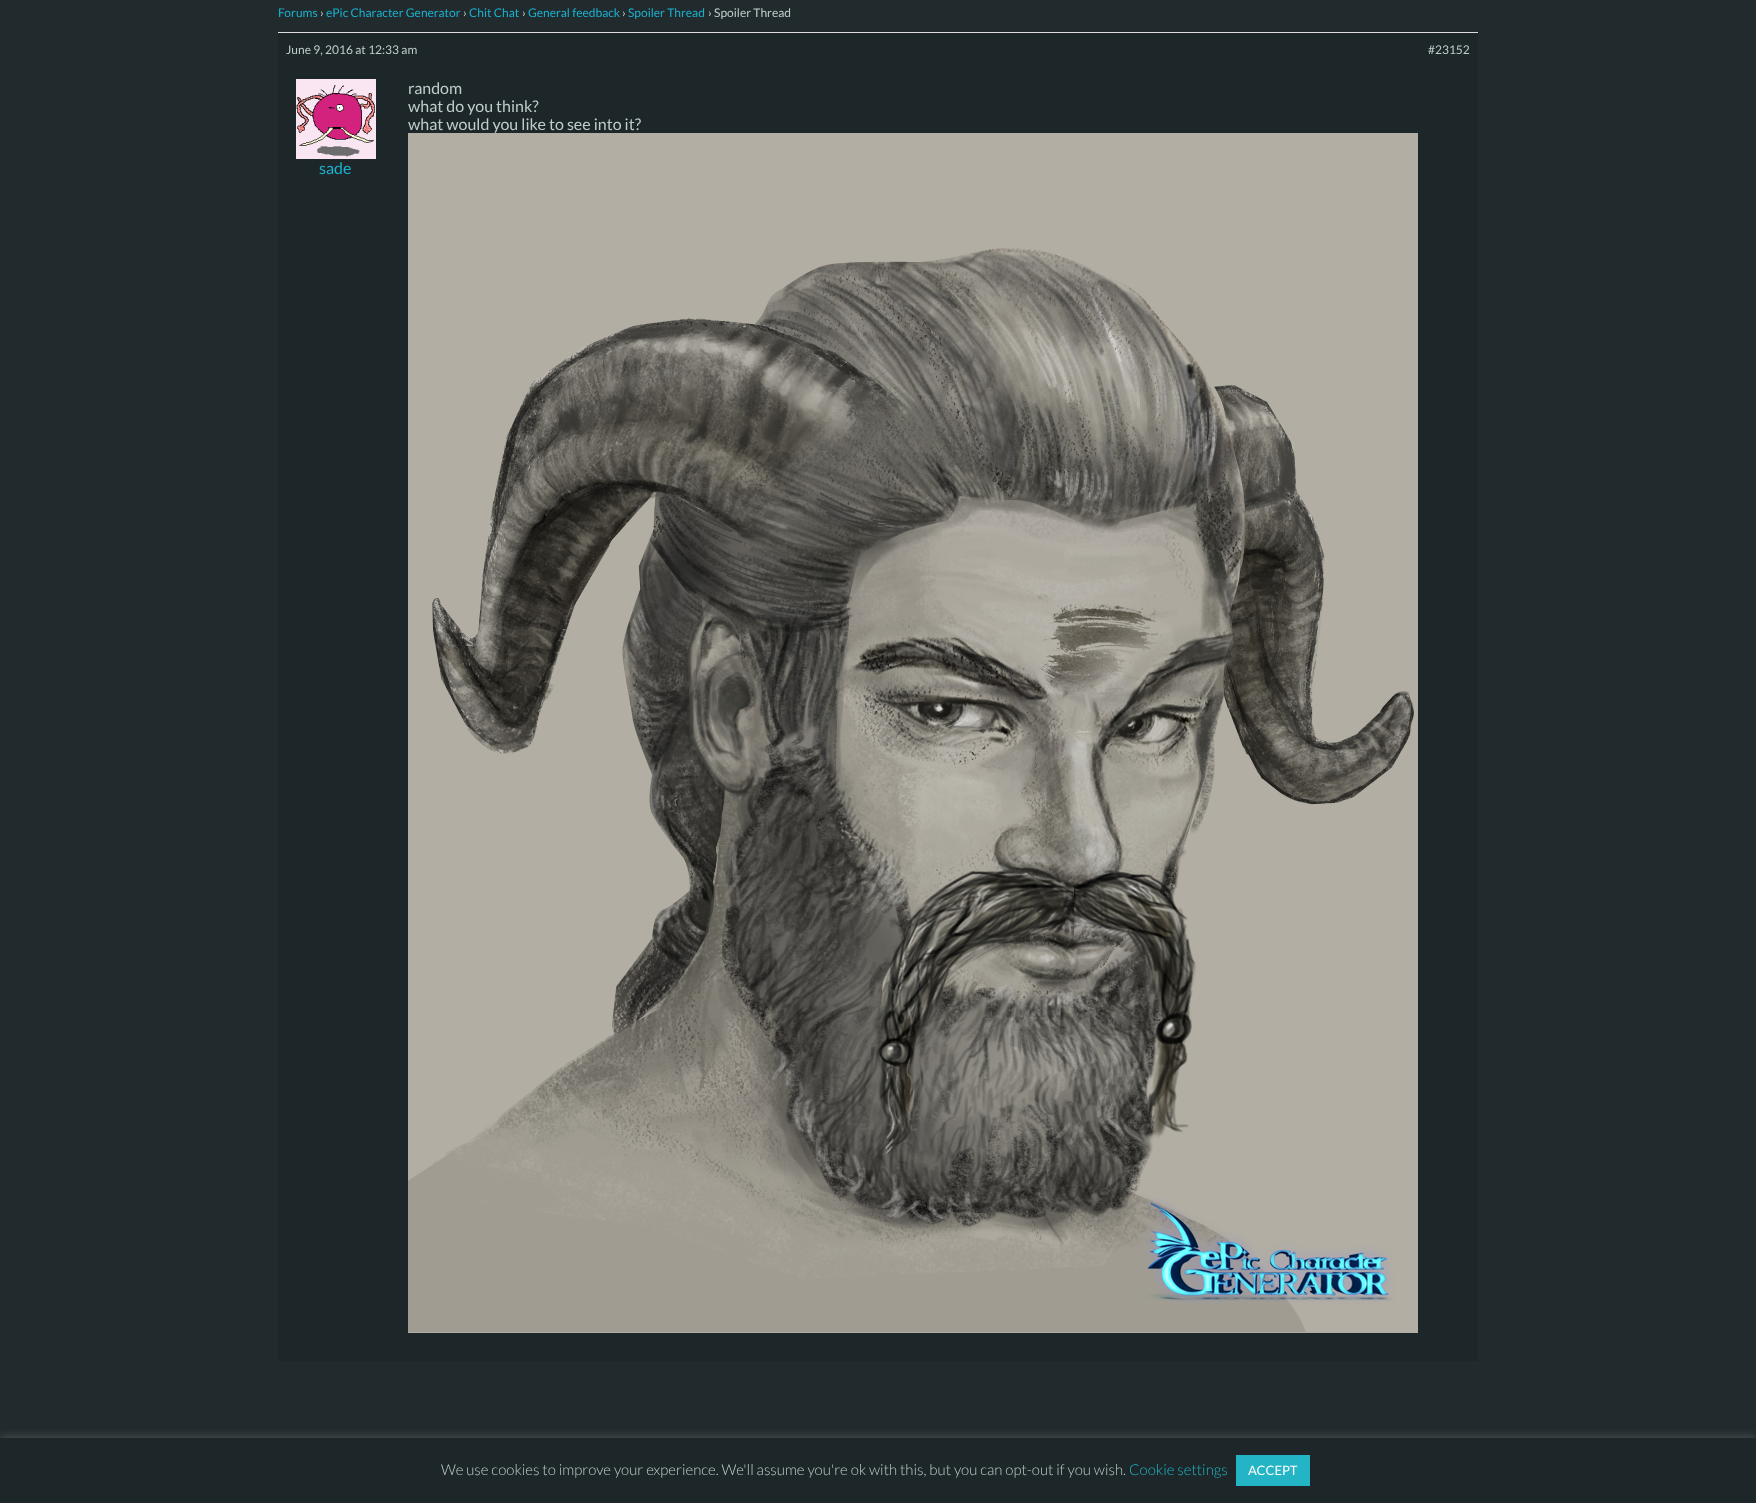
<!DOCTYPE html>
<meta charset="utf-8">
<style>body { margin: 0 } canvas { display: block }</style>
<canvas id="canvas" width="1756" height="1503"></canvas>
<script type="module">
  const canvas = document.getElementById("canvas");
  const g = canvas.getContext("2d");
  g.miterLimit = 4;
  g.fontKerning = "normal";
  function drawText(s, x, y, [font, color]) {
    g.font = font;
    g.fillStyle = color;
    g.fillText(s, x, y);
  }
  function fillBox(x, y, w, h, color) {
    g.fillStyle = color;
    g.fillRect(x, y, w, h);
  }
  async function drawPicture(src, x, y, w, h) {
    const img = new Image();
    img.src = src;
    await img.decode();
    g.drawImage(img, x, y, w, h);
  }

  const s1 = ["12px Lato", "#1BB0CE"];
  const s2 = ["12px Lato", "#BECCCA"];
  const s3 = ["16px Lato", "#BECCCA"];
  const s4 = ["16px Lato", "#1BB0CE"];
  const s5 = ["300 15px Lato", "#BECCCA"];
  const s6 = ["300 15px Lato", "#23B5C5"];
  const s7 = ["13px Lato", "#FFFFFF"];

  fillBox(0, 0, 1756, 1503, "#212B2D");
  drawText("Forums", 278, 17, s1);
  drawText("›", 320, 17, s2);
  drawText("ePic Character Generator", 326, 17, s1);
  drawText("›", 463, 17, s2);
  drawText("Chit Chat", 469, 17, s1);
  drawText("›", 522, 17, s2);
  drawText("General feedback", 528, 17, s1);
  drawText("›", 622, 17, s2);
  drawText("Spoiler Thread", 628, 17, s1);
  drawText("› Spoiler Thread", 708, 17, s2);
  fillBox(278, 33, 1200, 1328, "#1D2628");
  fillBox(278, 32, 1200, 1, "#DDDDDD");
  drawText("June 9, 2016 at 12:33 am", 286, 54, s2);
  drawText("#23152", 1428, 54, s2);
  drawText("random", 408, 94, s3);
  drawText("what do you think?", 408, 112, s3);
  drawText("what would you like to see into it?", 408, 130, s3);
  await drawPicture("pic1.png", 408, 133, 1010, 1200);
  await drawPicture("pic2.png", 296, 79, 80, 80);
  drawText("sade", 319, 174, s4);
  g.fillStyle = "rgba(172, 171, 171, 0.3)";
  g.filter = "blur(5px)";
  g.beginPath();
  g.rect(0, 1437, 1756, 65);
  g.fill();
  g.filter = "none";
  fillBox(0, 1438, 1756, 65, "#1D2628");
  drawText("We use cookies to improve your experience. We'll assume you're ok with this, but you can opt-out if you wish.", 441, 1475, s5);
  drawText("Cookie settings", 1129, 1475, s6);
  fillBox(1236, 1455, 74, 31, "#23B5C5");
  drawText("ACCEPT", 1248, 1475, s7);
</script>
